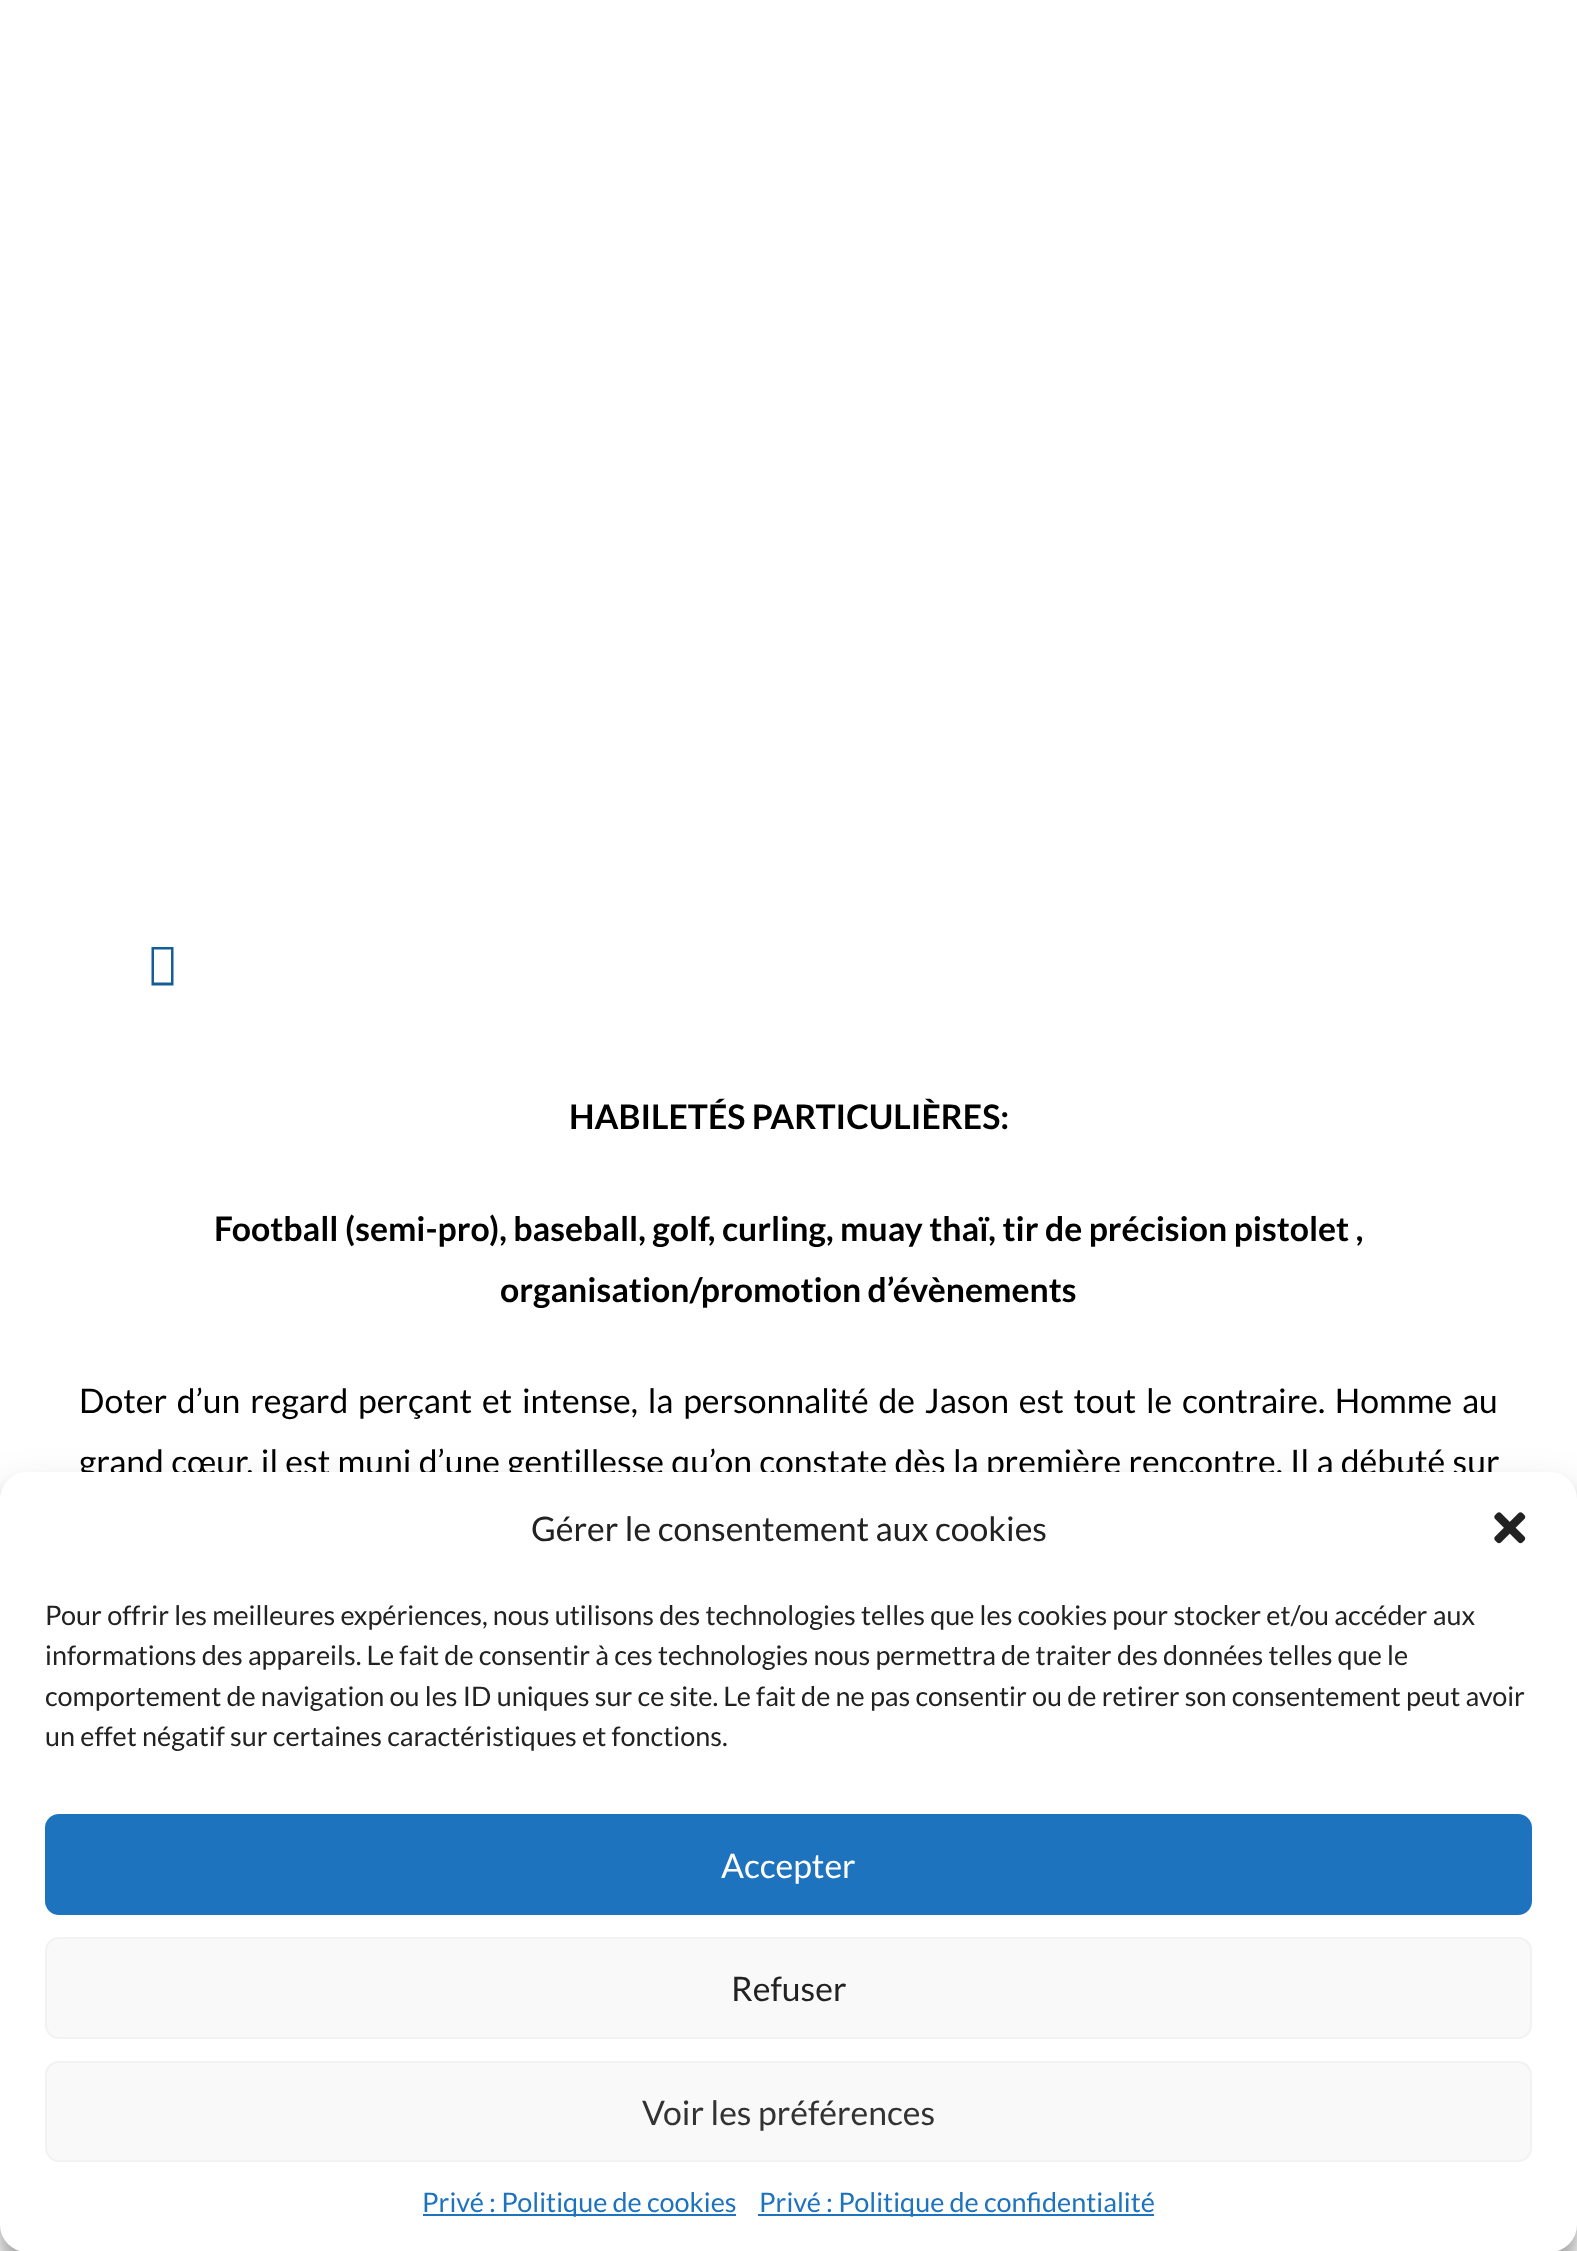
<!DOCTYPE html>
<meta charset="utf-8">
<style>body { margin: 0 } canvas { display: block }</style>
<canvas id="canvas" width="1577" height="2251"></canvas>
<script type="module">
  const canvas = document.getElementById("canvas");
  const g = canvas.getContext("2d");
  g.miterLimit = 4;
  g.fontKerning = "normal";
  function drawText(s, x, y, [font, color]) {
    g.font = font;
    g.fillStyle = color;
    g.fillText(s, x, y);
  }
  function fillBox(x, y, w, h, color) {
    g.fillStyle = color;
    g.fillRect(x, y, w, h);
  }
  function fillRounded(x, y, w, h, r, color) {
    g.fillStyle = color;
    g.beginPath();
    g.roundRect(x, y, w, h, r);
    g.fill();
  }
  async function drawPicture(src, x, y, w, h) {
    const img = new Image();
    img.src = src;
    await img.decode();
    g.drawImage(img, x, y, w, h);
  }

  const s1 = ["bold 33.75px Lato", "#000000"];
  const s2 = ["33.75px Lato", "#000000"];
  const s3 = ["33.75px Lato", "#222222"];
  const s4 = ["27px Lato", "#222222"];
  const s5 = ["33.75px Lato", "#FFFFFF"];
  const s6 = ["33.75px Lato", "#333333"];
  const s7 = ["27px Lato", "#1E73BE"];

  fillBox(0, 0, 1577, 2251, "#FFFFFF");
  g.fillStyle = "#155D97";
  g.beginPath();
  g.moveTo(151.5, 985.5);
  g.lineTo(151.5, 947);
  g.lineTo(173.5, 947);
  g.lineTo(173.5, 985.5);
  g.closePath();
  g.moveTo(154, 982.5);
  g.lineTo(171, 982.5);
  g.lineTo(171, 949.5);
  g.lineTo(154, 949.5);
  g.closePath();
  g.fill();
  drawText("HABILETÉS PARTICULIÈRES:", 569, 1129, s1);
  drawText("Football (semi-pro), baseball, golf, curling, muay thaï, tir de précision pistolet ,", 214, 1241, s1);
  drawText("organisation/promotion d’évènements", 500, 1302, s1);
  g.wordSpacing = "3.25px";
  drawText("Doter d’un regard perçant et intense, la personnalité de Jason est tout le contraire. Homme au", 79, 1413, s2);
  g.wordSpacing = "0.75px";
  drawText("grand cœur, il est muni d’une gentillesse qu’on constate dès la première rencontre. Il a débuté sur", 79, 1474, s2);
  g.fillStyle = "rgba(0, 0, 0, 0.23)";
  g.filter = "blur(7px)";
  g.beginPath();
  g.roundRect(0, 1485, 1577, 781, 27);
  g.fill();
  g.filter = "none";
  g.fillStyle = "rgba(0, 0, 0, 0.19)";
  g.filter = "blur(22.5px)";
  g.beginPath();
  g.roundRect(0, 1494, 1577, 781, 27);
  g.fill();
  g.filter = "none";
  fillRounded(0, 1472, 1577, 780, 27, "#FFFFFF");
  g.wordSpacing = "0px";
  drawText("Gérer le consentement aux cookies", 531, 1541, s3);
  await drawPicture("pic1.png", 1494, 1512, 32, 32);
  drawText("Pour offrir les meilleures expériences, nous utilisons des technologies telles que les cookies pour stocker et/ou accéder aux", 45, 1625, s4);
  drawText("informations des appareils. Le fait de consentir à ces technologies nous permettra de traiter des données telles que le", 45, 1665, s4);
  drawText("comportement de navigation ou les ID uniques sur ce site. Le fait de ne pas consentir ou de retirer son consentement peut avoir", 45, 1706, s4);
  drawText("un effet négatif sur certaines caractéristiques et fonctions.", 45, 1746, s4);
  g.fillStyle = "#1E73BE";
  g.beginPath();
  g.roundRect(46, 1815, 1485, 99, 13);
  g.fill();
  g.strokeStyle = "#1E73BE";
  g.lineWidth = 2;
  g.stroke();
  drawText("Accepter", 721, 1878, s5);
  g.fillStyle = "#F9F9F9";
  g.beginPath();
  g.roundRect(46, 1938, 1485, 100, 13);
  g.fill();
  g.strokeStyle = "#F2F2F2";
  g.stroke();
  drawText("Refuser", 731, 2001, s3);
  g.fillStyle = "#F9F9F9";
  g.beginPath();
  g.roundRect(46, 2062, 1485, 99, 13);
  g.fill();
  g.stroke();
  drawText("Voir les préférences", 642, 2125, s6);
  fillBox(423, 2214, 313, 2, "#1E73BE");
  drawText("Privé : Politique de cookies", 422, 2212, s7);
  fillBox(758, 2214, 396, 2, "#1E73BE");
  drawText("Privé : Politique de confidentialité", 759, 2212, s7);
</script>
